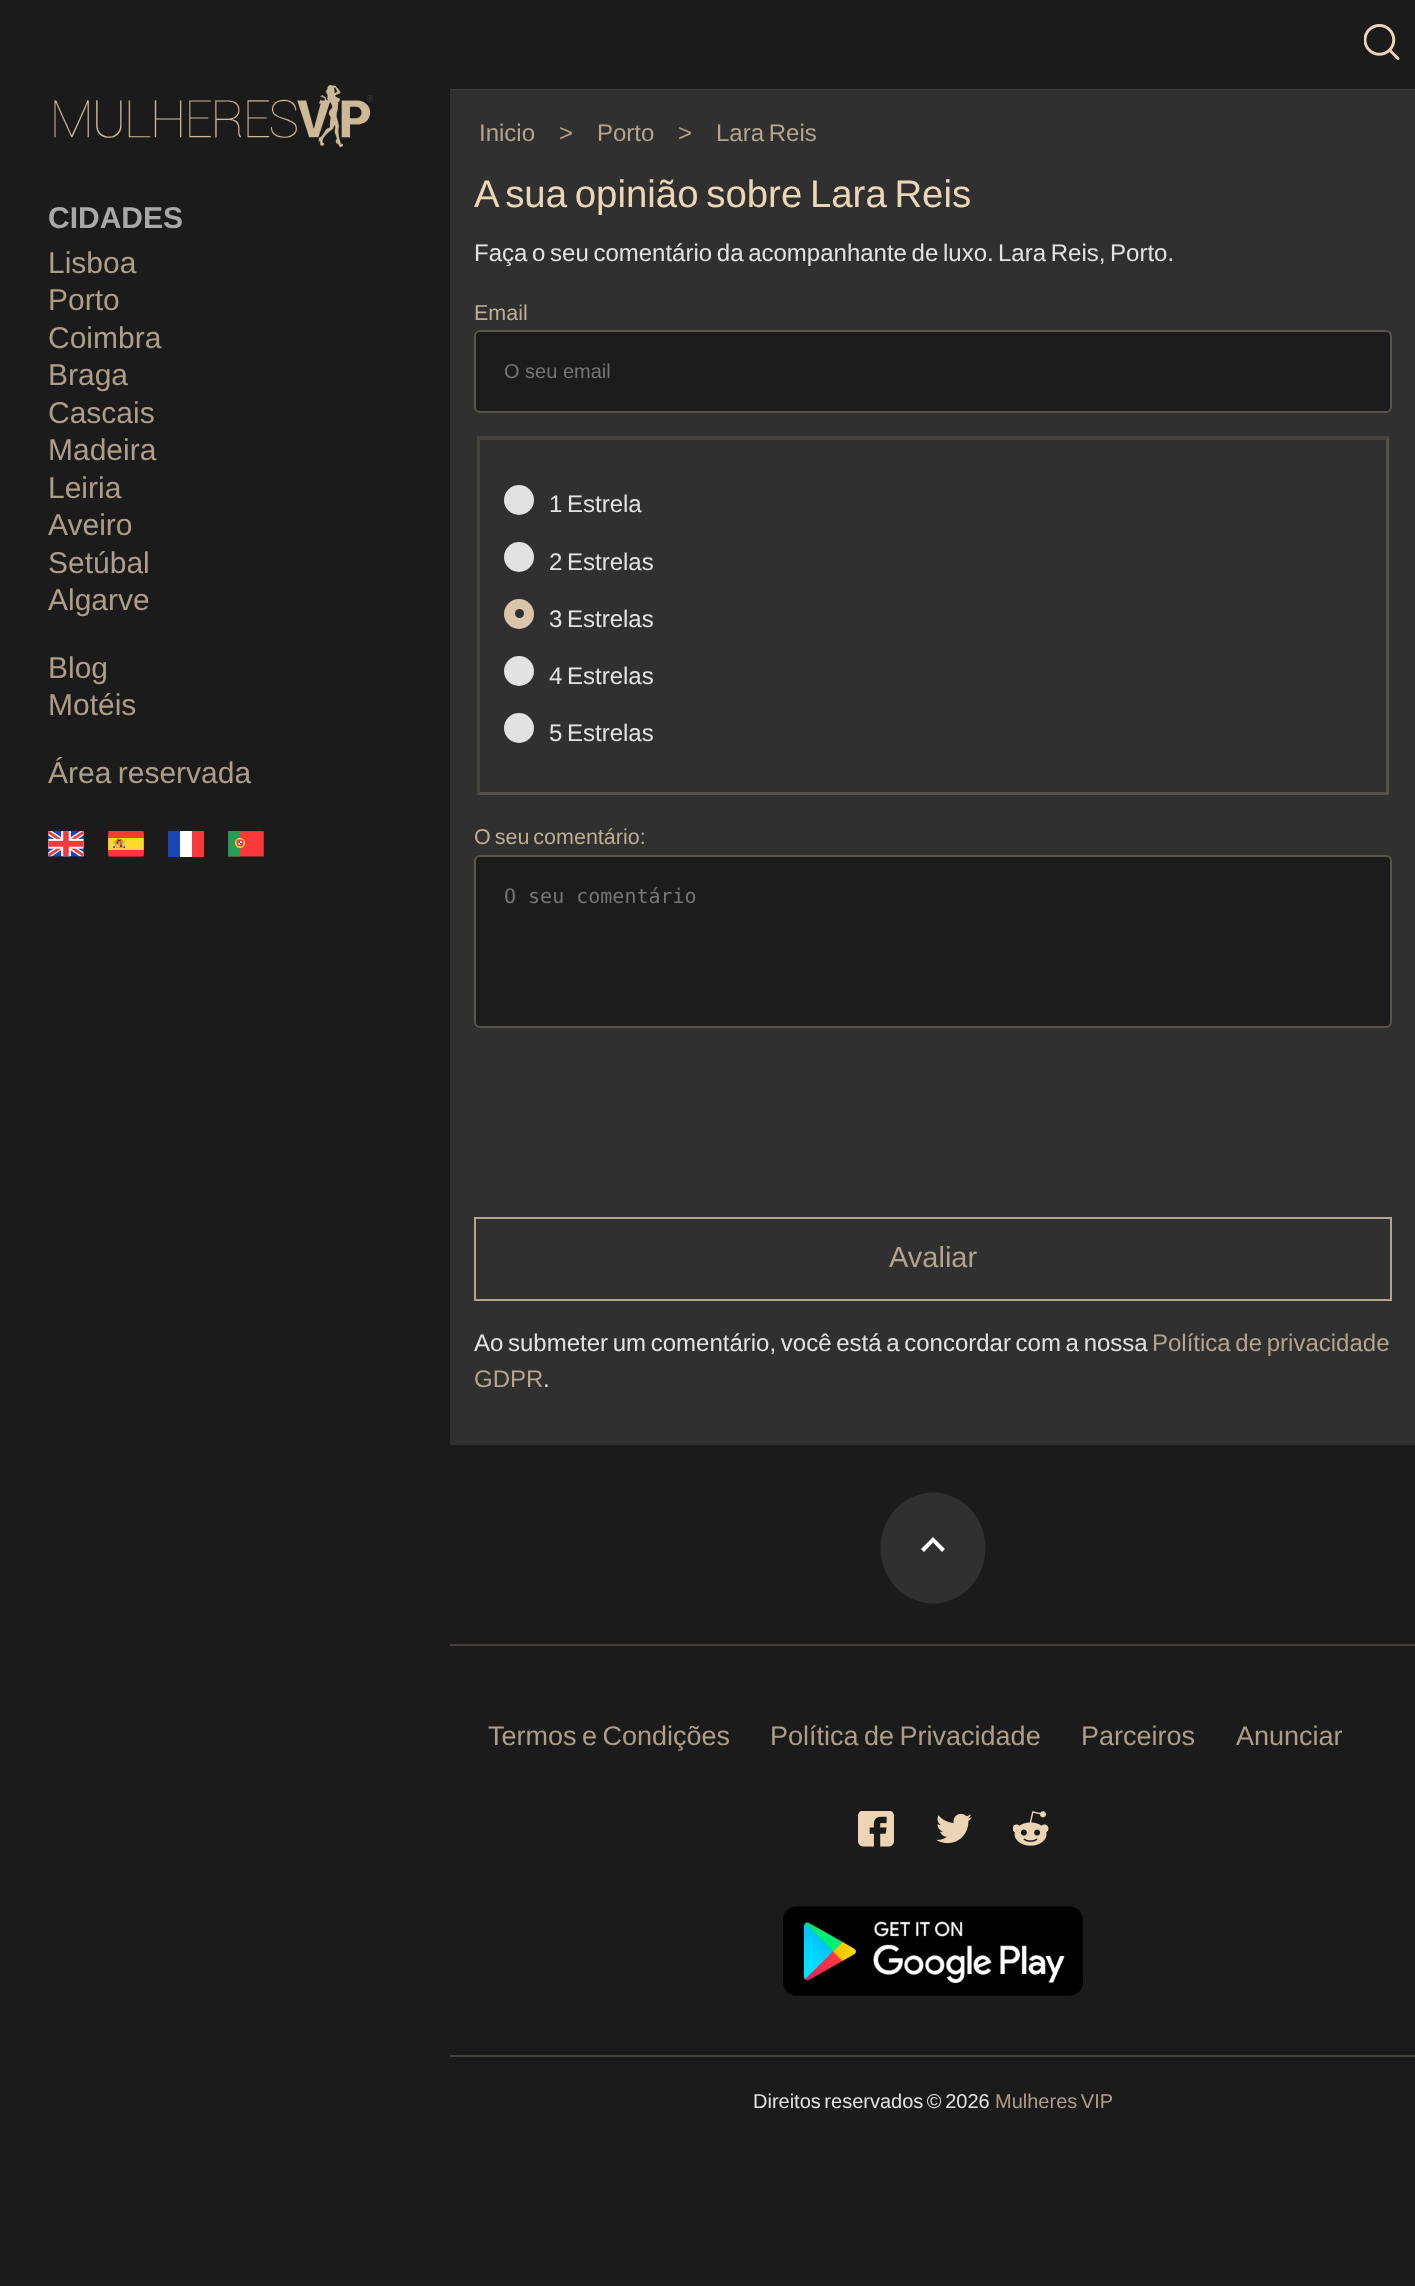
<!DOCTYPE html>
<meta charset="utf-8">
<style>body { margin: 0 } canvas { display: block }</style>
<canvas id="canvas" width="1415" height="2286"></canvas>
<script type="module">
  const canvas = document.getElementById("canvas");
  const g = canvas.getContext("2d");
  g.miterLimit = 4;
  g.fontKerning = "normal";
  function drawText(s, x, y, [font, color]) {
    g.font = font;
    g.fillStyle = color;
    g.fillText(s, x, y);
  }
  function fillBox(x, y, w, h, color) {
    g.fillStyle = color;
    g.fillRect(x, y, w, h);
  }
  function fillRounded(x, y, w, h, r, color) {
    g.fillStyle = color;
    g.beginPath();
    g.roundRect(x, y, w, h, r);
    g.fill();
  }
  async function drawPicture(src, x, y, w, h) {
    const img = new Image();
    img.src = src;
    await img.decode();
    g.drawImage(img, x, y, w, h);
  }

  const s1 = ["bold 30px Liberation Sans", "#A8A8A8"];
  const s2 = ["30px Liberation Sans", "#AE9E88"];
  const s3 = ["24px Liberation Sans", "#B4A48E"];
  const s4 = ["38.4px Liberation Sans", "#EDD6B6"];
  const s5 = ["24px Liberation Sans", "#E2E2E2"];
  const s6 = ["21.5px Liberation Sans", "#BEAD95"];
  const s7 = ["20px Liberation Sans", "#757575"];
  const s8 = ["20px DejaVu Sans Mono", "#757575"];
  const s9 = ["29px Liberation Sans", "#B4A48E"];
  const s10 = ["27px Liberation Sans", "#AE9E88"];
  const s11 = ["20px Liberation Sans", "#E2E2E2"];
  const s12 = ["20px Liberation Sans", "#AE9E88"];

  fillBox(0, 0, 1415, 2286, "#1B1B1B");
  await drawPicture("pic1.png", 54, 84, 319, 64);
  drawText("CIDADES", 48, 228, s1);
  drawText("Lisboa", 48, 273, s2);
  drawText("Porto", 48, 310, s2);
  drawText("Coimbra", 48, 348, s2);
  drawText("Braga", 48, 385, s2);
  drawText("Cascais", 48, 423, s2);
  drawText("Madeira", 48, 460, s2);
  drawText("Leiria", 48, 498, s2);
  drawText("Aveiro", 48, 535, s2);
  drawText("Setúbal", 48, 573, s2);
  drawText("Algarve", 48, 610, s2);
  drawText("Blog", 48, 678, s2);
  drawText("Motéis", 48, 715, s2);
  g.wordSpacing = "-2px";
  drawText("Área reservada", 48, 783, s2);
  await drawPicture("pic2.png", 48, 831, 36, 26);
  await drawPicture("pic3.png", 108, 831, 36, 26);
  fillBox(168, 831, 12, 26, "#1A47B8");
  fillBox(180, 831, 12, 26, "#FFFFFF");
  fillBox(192, 831, 12, 26, "#F93939");
  await drawPicture("pic4.png", 228, 831, 36, 26);
  fillBox(450, 89, 965, 1, "#45403A");
  await drawPicture("pic5.png", 1364, 24, 36, 36);
  fillBox(450, 90, 965, 1355, "#303030");
  g.wordSpacing = "0px";
  drawText("Inicio", 479, 141, s3);
  drawText(">", 559, 141, s3);
  drawText("Porto", 597, 141, s3);
  drawText(">", 678, 141, s3);
  g.wordSpacing = "-2px";
  drawText("Lara Reis", 716, 141, s3);
  g.wordSpacing = "-3px";
  drawText("A sua opinião sobre Lara Reis", 474, 207, s4);
  g.wordSpacing = "-2px";
  drawText("Faça o seu comentário da acompanhante de luxo.", 474, 261, s5);
  drawText("Lara Reis, Porto.", 998, 261, s5);
  g.wordSpacing = "0px";
  drawText("Email", 474, 320, s6);
  fillRounded(474, 330, 918, 83, 6, "#1C1C1C");
  g.beginPath();
  g.roundRect(475, 331, 916, 81, 5);
  g.strokeStyle = "rgba(237, 214, 182, 0.3)";
  g.lineWidth = 2;
  g.stroke();
  drawText("O seu email", 504, 378, s7);
  g.fillStyle = "#46433F";
  g.beginPath();
  g.moveTo(477, 436);
  g.lineTo(1389, 436);
  g.lineTo(1386, 440);
  g.lineTo(480, 440);
  g.closePath();
  g.fill();
  g.fillStyle = "rgba(237, 214, 182, 0.2)";
  g.beginPath();
  g.moveTo(1389, 436);
  g.lineTo(1389, 795);
  g.lineTo(1386, 792);
  g.lineTo(1386, 440);
  g.closePath();
  g.fill();
  g.beginPath();
  g.moveTo(1389, 795);
  g.lineTo(477, 795);
  g.lineTo(480, 792);
  g.lineTo(1386, 792);
  g.closePath();
  g.fill();
  g.fillStyle = "rgba(158, 143, 121, 0.2)";
  g.beginPath();
  g.moveTo(477, 795);
  g.lineTo(477, 436);
  g.lineTo(480, 440);
  g.lineTo(480, 792);
  g.closePath();
  g.fill();
  g.fillStyle = "#E2E2E2";
  g.beginPath();
  g.arc(519, 500, 15, 0, Math.PI * 2);
  g.fill();
  g.wordSpacing = "-2px";
  drawText("1 Estrela", 549, 512, s5);
  g.beginPath();
  g.arc(519, 557, 15, 0, Math.PI * 2);
  g.fill();
  drawText("2 Estrelas", 549, 570, s5);
  g.fillStyle = "#DAC5A9";
  g.beginPath();
  g.arc(519, 614, 15, 0, Math.PI * 2);
  g.fill();
  g.fillStyle = "#303030";
  g.beginPath();
  g.arc(519.5, 613.5, 4.5, 0, Math.PI * 2);
  g.fill();
  drawText("3 Estrelas", 549, 627, s5);
  g.beginPath();
  g.arc(519, 671, 15, 0, Math.PI * 2);
  g.fill();
  drawText("4 Estrelas", 549, 684, s5);
  g.beginPath();
  g.arc(519, 728, 15, 0, Math.PI * 2);
  g.fill();
  drawText("5 Estrelas", 549, 741, s5);
  drawText("O seu comentário:", 474, 844, s6);
  fillRounded(474, 855, 918, 173, 6, "#1C1C1C");
  g.beginPath();
  g.roundRect(475, 856, 916, 171, 5);
  g.stroke();
  g.wordSpacing = "0px";
  drawText("O seu comentário", 504, 903, s8);
  g.strokeStyle = "#B4A48E";
  g.strokeRect(475, 1218, 916, 82);
  drawText("Avaliar", 889, 1267, s9);
  g.wordSpacing = "-2px";
  drawText("Ao submeter um comentário, você está a concordar com a nossa", 474, 1351, s5);
  drawText("Política de privacidade", 1152, 1351, s3);
  g.wordSpacing = "0px";
  drawText("GDPR", 474, 1387, s3);
  drawText(".", 543, 1387, s5);
  g.fillStyle = "#303030";
  g.beginPath();
  g.ellipse(933, 1548, 52.5, 55.5, 0, 0, Math.PI * 2);
  g.fill();
  g.fillStyle = "#FFFFFF";
  g.beginPath();
  g.moveTo(933, 1537);
  g.lineTo(921, 1549);
  g.lineTo(924, 1552);
  g.lineTo(933, 1542.5);
  g.lineTo(942, 1552);
  g.lineTo(945, 1549);
  g.closePath();
  g.fill();
  fillBox(450, 1644, 965, 2, "#45403A");
  g.wordSpacing = "-2px";
  drawText("Termos e Condições", 488, 1745, s10);
  drawText("Política de Privacidade", 770, 1745, s10);
  g.wordSpacing = "0px";
  drawText("Parceiros", 1081, 1745, s10);
  drawText("Anunciar", 1236, 1745, s10);
  await drawPicture("pic6.png", 858, 1811, 36, 36);
  await drawPicture("pic7.png", 936, 1813, 36, 31);
  await drawPicture("pic8.png", 1013, 1811, 36, 35);
  await drawPicture("pic9.png", 783, 1906, 300, 90);
  fillBox(450, 2055, 965, 2, "#45403A");
  g.wordSpacing = "-2px";
  drawText("Direitos reservados © 2026", 753, 2108, s11);
  drawText("Mulheres VIP", 995, 2108, s12);
</script>
